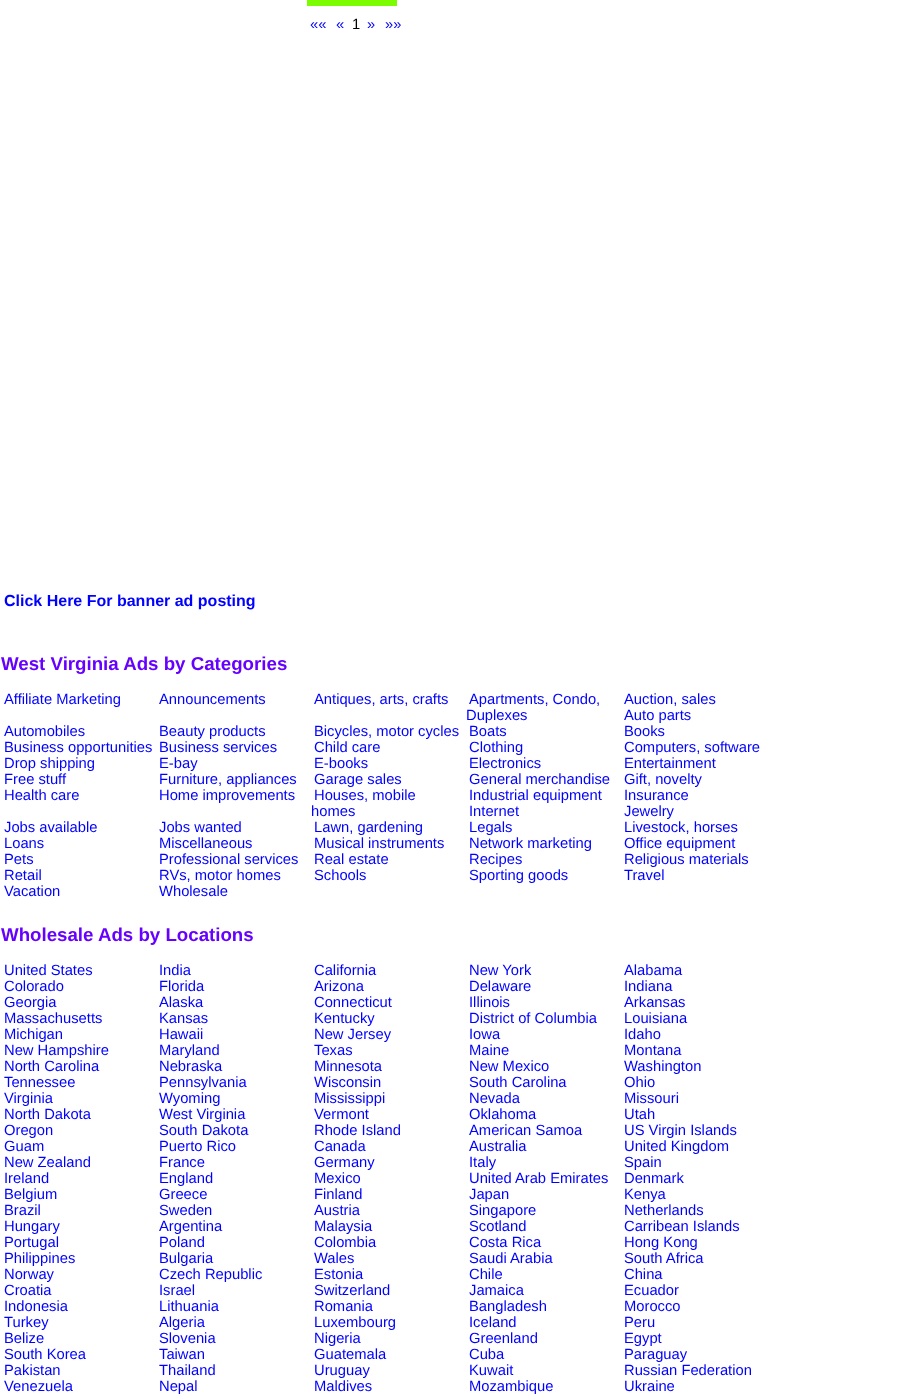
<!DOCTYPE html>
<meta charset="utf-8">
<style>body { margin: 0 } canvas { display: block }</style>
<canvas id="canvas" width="910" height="1400"></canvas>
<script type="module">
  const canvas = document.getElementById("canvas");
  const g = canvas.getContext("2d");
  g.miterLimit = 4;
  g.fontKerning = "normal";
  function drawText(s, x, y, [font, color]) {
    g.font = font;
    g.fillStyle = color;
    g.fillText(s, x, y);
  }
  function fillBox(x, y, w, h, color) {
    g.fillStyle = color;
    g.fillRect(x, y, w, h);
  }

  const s1 = ["14.75px Liberation Sans", "#0000FF"];
  const s2 = ["14.75px Liberation Sans", "#000000"];
  const s3 = ["bold 16px Liberation Sans", "#0000FF"];
  const s4 = ["bold 18.7px Liberation Sans", "#6600FF"];

  fillBox(0, 0, 910, 1400, "#FFFFFF");
  fillBox(307, 0, 90, 6, "#7CFC00");
  drawText("««", 310, 29, s1);
  drawText("«", 336, 29, s1);
  drawText("1", 352, 29, s2);
  drawText("»", 367, 29, s1);
  drawText("»»", 385, 29, s1);
  drawText("Click Here For banner ad posting", 4, 606, s3);
  drawText("West Virginia Ads by Categories", 1, 670, s4);
  drawText("Affiliate Marketing", 4, 704, s1);
  drawText("Announcements", 159, 704, s1);
  drawText("Antiques, arts, crafts", 314, 704, s1);
  drawText("Apartments, Condo,", 469, 704, s1);
  drawText("Duplexes", 466, 720, s1);
  drawText("Auction, sales", 624, 704, s1);
  drawText("Auto parts", 624, 720, s1);
  drawText("Automobiles", 4, 736, s1);
  drawText("Beauty products", 159, 736, s1);
  drawText("Bicycles, motor cycles", 314, 736, s1);
  drawText("Boats", 469, 736, s1);
  drawText("Books", 624, 736, s1);
  drawText("Business opportunities", 4, 752, s1);
  drawText("Business services", 159, 752, s1);
  drawText("Child care", 314, 752, s1);
  drawText("Clothing", 469, 752, s1);
  drawText("Computers, software", 624, 752, s1);
  drawText("Drop shipping", 4, 768, s1);
  drawText("E-bay", 159, 768, s1);
  drawText("E-books", 314, 768, s1);
  drawText("Electronics", 469, 768, s1);
  drawText("Entertainment", 624, 768, s1);
  drawText("Free stuff", 4, 784, s1);
  drawText("Furniture, appliances", 159, 784, s1);
  drawText("Garage sales", 314, 784, s1);
  drawText("General merchandise", 469, 784, s1);
  drawText("Gift, novelty", 624, 784, s1);
  drawText("Health care", 4, 800, s1);
  drawText("Home improvements", 159, 800, s1);
  drawText("Houses, mobile", 314, 800, s1);
  drawText("homes", 311, 816, s1);
  drawText("Industrial equipment", 469, 800, s1);
  drawText("Insurance", 624, 800, s1);
  drawText("Internet", 469, 816, s1);
  drawText("Jewelry", 624, 816, s1);
  drawText("Jobs available", 4, 832, s1);
  drawText("Jobs wanted", 159, 832, s1);
  drawText("Lawn, gardening", 314, 832, s1);
  drawText("Legals", 469, 832, s1);
  drawText("Livestock, horses", 624, 832, s1);
  drawText("Loans", 4, 848, s1);
  drawText("Miscellaneous", 159, 848, s1);
  drawText("Musical instruments", 314, 848, s1);
  drawText("Network marketing", 469, 848, s1);
  drawText("Office equipment", 624, 848, s1);
  drawText("Pets", 4, 864, s1);
  drawText("Professional services", 159, 864, s1);
  drawText("Real estate", 314, 864, s1);
  drawText("Recipes", 469, 864, s1);
  drawText("Religious materials", 624, 864, s1);
  drawText("Retail", 4, 880, s1);
  drawText("RVs, motor homes", 159, 880, s1);
  drawText("Schools", 314, 880, s1);
  drawText("Sporting goods", 469, 880, s1);
  drawText("Travel", 624, 880, s1);
  drawText("Vacation", 4, 896, s1);
  drawText("Wholesale", 159, 896, s1);
  drawText("Wholesale Ads by Locations", 1, 941, s4);
  drawText("United States", 4, 975, s1);
  drawText("India", 159, 975, s1);
  drawText("California", 314, 975, s1);
  drawText("New York", 469, 975, s1);
  drawText("Alabama", 624, 975, s1);
  drawText("Colorado", 4, 991, s1);
  drawText("Florida", 159, 991, s1);
  drawText("Arizona", 314, 991, s1);
  drawText("Delaware", 469, 991, s1);
  drawText("Indiana", 624, 991, s1);
  drawText("Georgia", 4, 1007, s1);
  drawText("Alaska", 159, 1007, s1);
  drawText("Connecticut", 314, 1007, s1);
  drawText("Illinois", 469, 1007, s1);
  drawText("Arkansas", 624, 1007, s1);
  drawText("Massachusetts", 4, 1023, s1);
  drawText("Kansas", 159, 1023, s1);
  drawText("Kentucky", 314, 1023, s1);
  drawText("District of Columbia", 469, 1023, s1);
  drawText("Louisiana", 624, 1023, s1);
  drawText("Michigan", 4, 1039, s1);
  drawText("Hawaii", 159, 1039, s1);
  drawText("New Jersey", 314, 1039, s1);
  drawText("Iowa", 469, 1039, s1);
  drawText("Idaho", 624, 1039, s1);
  drawText("New Hampshire", 4, 1055, s1);
  drawText("Maryland", 159, 1055, s1);
  drawText("Texas", 314, 1055, s1);
  drawText("Maine", 469, 1055, s1);
  drawText("Montana", 624, 1055, s1);
  drawText("North Carolina", 4, 1071, s1);
  drawText("Nebraska", 159, 1071, s1);
  drawText("Minnesota", 314, 1071, s1);
  drawText("New Mexico", 469, 1071, s1);
  drawText("Washington", 624, 1071, s1);
  drawText("Tennessee", 4, 1087, s1);
  drawText("Pennsylvania", 159, 1087, s1);
  drawText("Wisconsin", 314, 1087, s1);
  drawText("South Carolina", 469, 1087, s1);
  drawText("Ohio", 624, 1087, s1);
  drawText("Virginia", 4, 1103, s1);
  drawText("Wyoming", 159, 1103, s1);
  drawText("Mississippi", 314, 1103, s1);
  drawText("Nevada", 469, 1103, s1);
  drawText("Missouri", 624, 1103, s1);
  drawText("North Dakota", 4, 1119, s1);
  drawText("West Virginia", 159, 1119, s1);
  drawText("Vermont", 314, 1119, s1);
  drawText("Oklahoma", 469, 1119, s1);
  drawText("Utah", 624, 1119, s1);
  drawText("Oregon", 4, 1135, s1);
  drawText("South Dakota", 159, 1135, s1);
  drawText("Rhode Island", 314, 1135, s1);
  drawText("American Samoa", 469, 1135, s1);
  drawText("US Virgin Islands", 624, 1135, s1);
  drawText("Guam", 4, 1151, s1);
  drawText("Puerto Rico", 159, 1151, s1);
  drawText("Canada", 314, 1151, s1);
  drawText("Australia", 469, 1151, s1);
  drawText("United Kingdom", 624, 1151, s1);
  drawText("New Zealand", 4, 1167, s1);
  drawText("France", 159, 1167, s1);
  drawText("Germany", 314, 1167, s1);
  drawText("Italy", 469, 1167, s1);
  drawText("Spain", 624, 1167, s1);
  drawText("Ireland", 4, 1183, s1);
  drawText("England", 159, 1183, s1);
  drawText("Mexico", 314, 1183, s1);
  drawText("United Arab Emirates", 469, 1183, s1);
  drawText("Denmark", 624, 1183, s1);
  drawText("Belgium", 4, 1199, s1);
  drawText("Greece", 159, 1199, s1);
  drawText("Finland", 314, 1199, s1);
  drawText("Japan", 469, 1199, s1);
  drawText("Kenya", 624, 1199, s1);
  drawText("Brazil", 4, 1215, s1);
  drawText("Sweden", 159, 1215, s1);
  drawText("Austria", 314, 1215, s1);
  drawText("Singapore", 469, 1215, s1);
  drawText("Netherlands", 624, 1215, s1);
  drawText("Hungary", 4, 1231, s1);
  drawText("Argentina", 159, 1231, s1);
  drawText("Malaysia", 314, 1231, s1);
  drawText("Scotland", 469, 1231, s1);
  drawText("Carribean Islands", 624, 1231, s1);
  drawText("Portugal", 4, 1247, s1);
  drawText("Poland", 159, 1247, s1);
  drawText("Colombia", 314, 1247, s1);
  drawText("Costa Rica", 469, 1247, s1);
  drawText("Hong Kong", 624, 1247, s1);
  drawText("Philippines", 4, 1263, s1);
  drawText("Bulgaria", 159, 1263, s1);
  drawText("Wales", 314, 1263, s1);
  drawText("Saudi Arabia", 469, 1263, s1);
  drawText("South Africa", 624, 1263, s1);
  drawText("Norway", 4, 1279, s1);
  drawText("Czech Republic", 159, 1279, s1);
  drawText("Estonia", 314, 1279, s1);
  drawText("Chile", 469, 1279, s1);
  drawText("China", 624, 1279, s1);
  drawText("Croatia", 4, 1295, s1);
  drawText("Israel", 159, 1295, s1);
  drawText("Switzerland", 314, 1295, s1);
  drawText("Jamaica", 469, 1295, s1);
  drawText("Ecuador", 624, 1295, s1);
  drawText("Indonesia", 4, 1311, s1);
  drawText("Lithuania", 159, 1311, s1);
  drawText("Romania", 314, 1311, s1);
  drawText("Bangladesh", 469, 1311, s1);
  drawText("Morocco", 624, 1311, s1);
  drawText("Turkey", 4, 1327, s1);
  drawText("Algeria", 159, 1327, s1);
  drawText("Luxembourg", 314, 1327, s1);
  drawText("Iceland", 469, 1327, s1);
  drawText("Peru", 624, 1327, s1);
  drawText("Belize", 4, 1343, s1);
  drawText("Slovenia", 159, 1343, s1);
  drawText("Nigeria", 314, 1343, s1);
  drawText("Greenland", 469, 1343, s1);
  drawText("Egypt", 624, 1343, s1);
  drawText("South Korea", 4, 1359, s1);
  drawText("Taiwan", 159, 1359, s1);
  drawText("Guatemala", 314, 1359, s1);
  drawText("Cuba", 469, 1359, s1);
  drawText("Paraguay", 624, 1359, s1);
  drawText("Pakistan", 4, 1375, s1);
  drawText("Thailand", 159, 1375, s1);
  drawText("Uruguay", 314, 1375, s1);
  drawText("Kuwait", 469, 1375, s1);
  drawText("Russian Federation", 624, 1375, s1);
  drawText("Venezuela", 4, 1391, s1);
  drawText("Nepal", 159, 1391, s1);
  drawText("Maldives", 314, 1391, s1);
  drawText("Mozambique", 469, 1391, s1);
  drawText("Ukraine", 624, 1391, s1);
</script>
